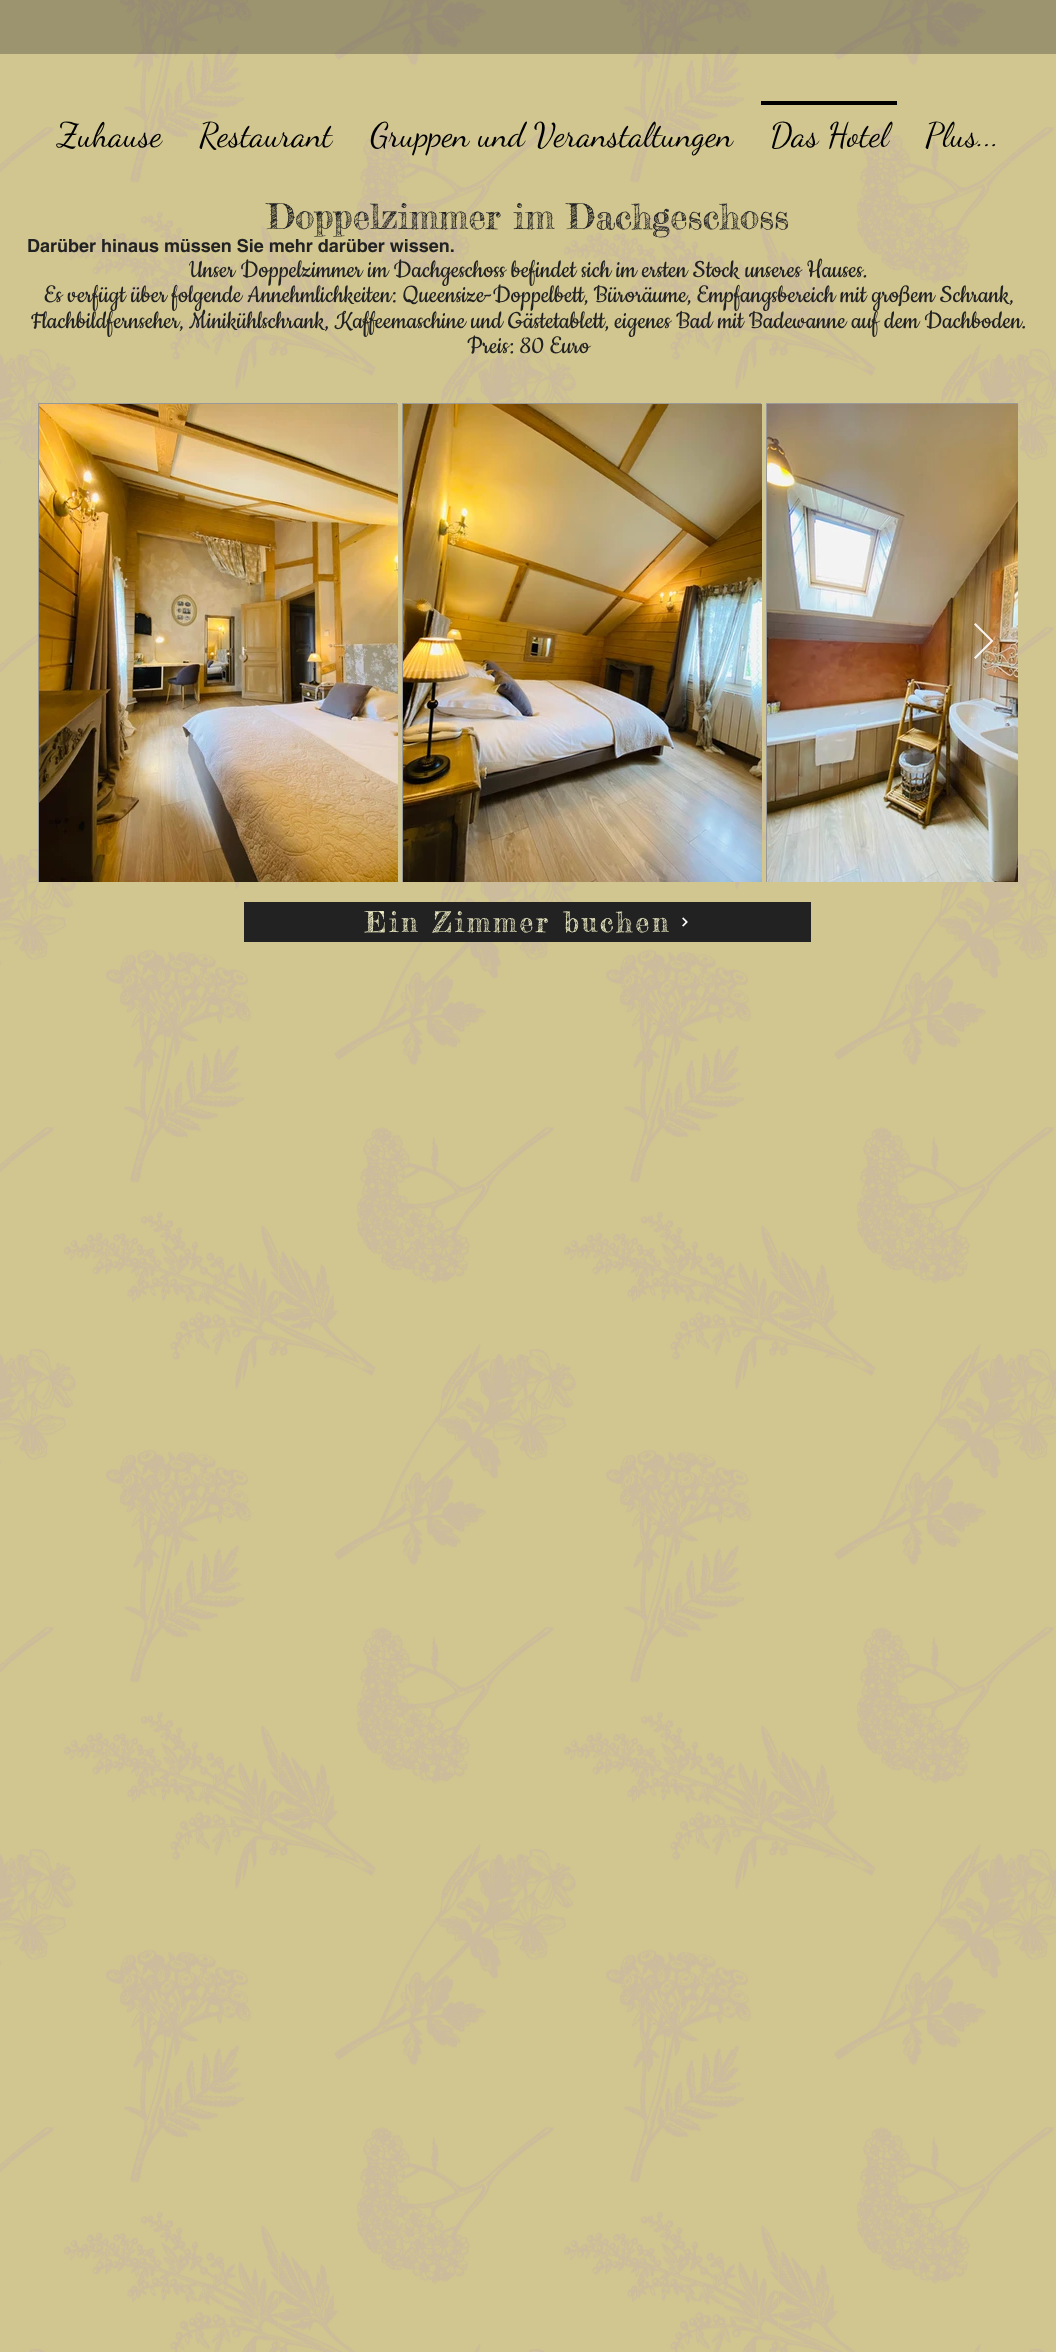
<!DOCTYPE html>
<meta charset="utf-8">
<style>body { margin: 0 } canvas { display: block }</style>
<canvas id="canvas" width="1056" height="2352"></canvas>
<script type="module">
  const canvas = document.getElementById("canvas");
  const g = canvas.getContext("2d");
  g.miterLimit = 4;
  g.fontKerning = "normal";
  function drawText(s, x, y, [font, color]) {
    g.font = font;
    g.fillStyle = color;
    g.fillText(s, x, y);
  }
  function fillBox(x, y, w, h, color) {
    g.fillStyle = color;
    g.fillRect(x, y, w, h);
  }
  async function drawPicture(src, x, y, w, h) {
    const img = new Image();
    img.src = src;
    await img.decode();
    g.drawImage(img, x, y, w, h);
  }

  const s1 = ["34px Dancing Script", "#000000"];
  const s2 = ["35px Fredericka the Great", "#222222"];
  const s3 = ["bold 18px helvetica", "#222222"];
  const s4 = ["28px Cookie", "#222222"];
  const s5 = ["28px Fredericka the Great", "#F2F0C7"];

  fillBox(0, 0, 1056, 2352, "#D1C690");
  await drawPicture("pic1.png", 0, 0, 1056, 2352);
  fillBox(0, 0, 1056, 54, "rgba(34, 34, 34, 0.3)");
  drawText("Zuhause", 57, 146, s1);
  drawText("Restaurant", 199, 146, s1);
  drawText("Gruppen und Veranstaltungen", 370, 146, s1);
  fillBox(761, 101, 136, 4, "#000000");
  drawText("Das Hotel", 770, 146, s1);
  drawText("Plus...", 925, 146, s1);
  drawText("Doppelzimmer im Dachgeschoss", 267, 229, s2);
  drawText("Darüber hinaus müssen Sie mehr darüber wissen.", 27, 252, s3);
  drawText("Unser Doppelzimmer im Dachgeschoss befindet sich im ersten Stock unseres Hauses.", 189, 277, s4);
  drawText("Es verfügt über folgende Annehmlichkeiten: Queensize-Doppelbett, Büroräume, Empfangsbereich mit großem Schrank,", 44, 302, s4);
  drawText("Flachbildfernseher, Minikühlschrank, Kaffeemaschine und Gästetablett, eigenes Bad mit Badewanne auf dem Dachboden.", 31, 328, s4);
  drawText("Preis: 80 Euro", 467, 353, s4);
  fillBox(38, 403, 359, 479, "#999999");
  await drawPicture("pic2.png", 39, 404, 359, 478);
  fillBox(402, 403, 359, 479, "#999999");
  await drawPicture("pic3.png", 403, 404, 359, 478);
  fillBox(766, 403, 252, 479, "#999999");
  await drawPicture("pic4.png", 767, 404, 251, 478);
  g.fillStyle = "rgba(255, 255, 255, 0.9)";
  g.beginPath();
  g.moveTo(974, 624.5);
  g.lineTo(975.5, 623);
  g.lineTo(993.5, 641);
  g.lineTo(975.5, 659);
  g.lineTo(974, 657.5);
  g.lineTo(990.5, 641);
  g.closePath();
  g.fill();
  fillBox(244, 902, 567, 40, "#222222");
  g.letterSpacing = "2.75px";
  drawText("Ein Zimmer buchen", 365, 932, s5);
  await drawPicture("pic5.png", 682, 917, 6, 10);
</script>
